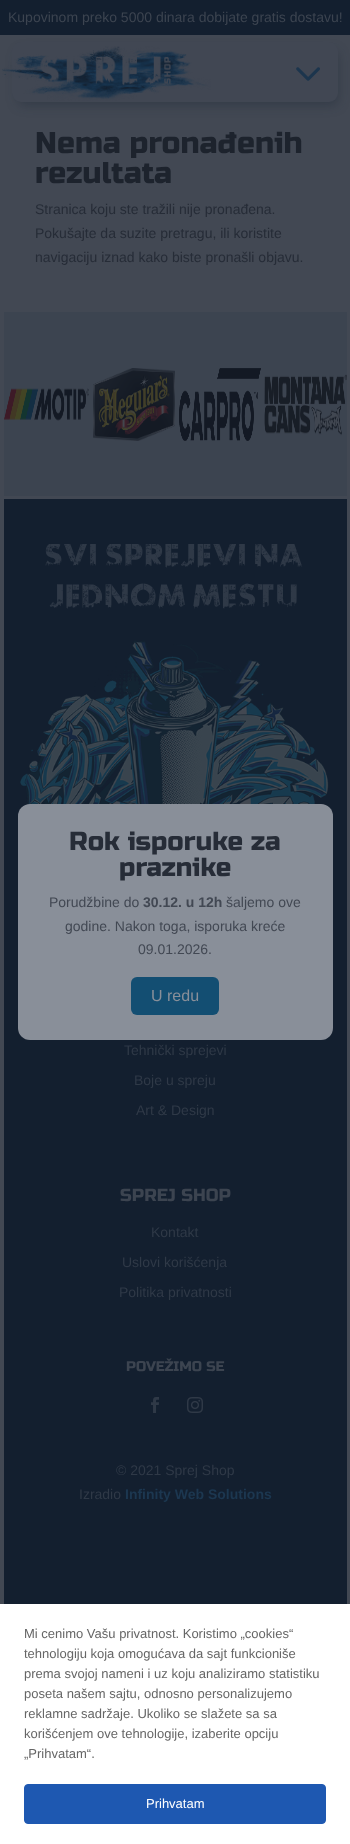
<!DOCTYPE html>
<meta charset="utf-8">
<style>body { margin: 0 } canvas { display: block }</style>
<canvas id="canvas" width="350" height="1844"></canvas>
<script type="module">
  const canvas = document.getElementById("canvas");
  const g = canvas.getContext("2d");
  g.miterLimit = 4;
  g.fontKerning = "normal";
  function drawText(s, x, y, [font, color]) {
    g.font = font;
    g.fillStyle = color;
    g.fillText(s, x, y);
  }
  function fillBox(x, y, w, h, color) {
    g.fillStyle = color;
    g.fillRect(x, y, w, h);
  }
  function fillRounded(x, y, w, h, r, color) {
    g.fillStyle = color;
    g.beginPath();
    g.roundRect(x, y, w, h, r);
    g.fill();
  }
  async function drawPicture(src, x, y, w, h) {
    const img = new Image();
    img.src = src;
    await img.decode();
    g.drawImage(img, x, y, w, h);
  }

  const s1 = ["14px Liberation Sans", "#3C4450"];
  const s2 = ["30px Russo One", "#1D232D"];
  const s3 = ["14px Liberation Sans", "#262C37"];
  const s4 = ["31.5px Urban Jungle", "#2F3947"];
  const s5 = ["14px Liberation Sans", "#2F3947"];
  const s6 = ["17.5px Russo One", "#3C4450"];
  const s7 = ["14px Russo One", "#3C4450"];
  const s8 = ["bold 14px Liberation Sans", "#1C3750"];
  const s9 = ["26px Russo One", "#262C37"];
  const s10 = ["14px Liberation Sans", "#424853"];
  const s11 = ["bold 14px Liberation Sans", "#424853"];
  const s12 = ["16px Liberation Sans", "#898F99"];
  const s13 = ["13px Liberation Sans", "#666666"];
  const s14 = ["13px Liberation Sans", "#FFFFFF"];

  fillBox(0, 0, 350, 1844, "#424853");
  g.fillStyle = "rgba(19, 31, 47, 0.33)";
  g.filter = "blur(6px)";
  g.beginPath();
  g.roundRect(18, 51, 320, 54, 6);
  g.fill();
  g.filter = "none";
  fillBox(0, 0, 350, 35, "#131F2F");
  drawText("Kupovinom preko 5000 dinara dobijate gratis dostavu!", 8, 22, s1);
  fillRounded(12, 42, 326, 60, 9, "#414753");
  await drawPicture("pic1.png", 2, 46, 209, 55);
  await drawPicture("pic2.png", 296, 67, 24, 14);
  drawText("Nema pronađenih", 35, 153, s2);
  drawText("rezultata", 35, 183, s2);
  drawText("Stranica koju ste tražili nije pronađena.", 35, 214, s3);
  drawText("Pokušajte da suzite pretragu, ili koristite", 35, 238, s3);
  drawText("navigaciju iznad kako biste pronašli objavu.", 35, 262, s3);
  fillBox(4, 312, 343, 184, "#3C4450");
  await drawPicture("pic3.png", 4, 388, 85, 33);
  await drawPicture("pic4.png", 93, 368, 82, 73);
  await drawPicture("pic5.png", 179, 368, 82, 73);
  await drawPicture("pic6.png", 264, 374, 83, 62);
  fillBox(4, 499, 343, 1105, "#131F2F");
  g.save();
  g.beginPath();
  g.roundRect(16, 544, 318, 593, [0, 0, 74, 74]);
  g.clip();
  g.letterSpacing = "3px";
  drawText("SVI SPREJEVI NA", 45, 567, s4);
  g.restore();
  g.letterSpacing = "3px";
  drawText("JEDNOM MESTU", 50, 608, s4);
  await drawPicture("pic7.png", 20, 640, 309, 165);
  g.letterSpacing = "0px";
  drawText("Tehnički sprejevi", 124, 1055, s5);
  drawText("Boje u spreju", 134, 1085, s5);
  drawText("Art & Design", 136, 1115, s5);
  drawText("SPREJ SHOP", 120, 1201, s6);
  drawText("Kontakt", 151, 1237, s5);
  drawText("Uslovi korišćenja", 122, 1267, s5);
  drawText("Politika privatnosti", 119, 1297, s5);
  drawText("POVEŽIMO SE", 126, 1371, s7);
  await drawPicture("pic8.png", 151, 1397, 8, 16);
  await drawPicture("pic9.png", 187, 1397, 16, 16);
  drawText("© 2021 Sprej Shop", 116, 1475, s5);
  drawText("Izradio", 79, 1499, s5);
  drawText("Infinity Web Solutions", 125, 1499, s8);
  fillRounded(18, 804, 315, 236, 12, "#898F99");
  drawText("Rok isporuke za", 69, 850, s9);
  drawText("praznike", 119, 876, s9);
  drawText("Porudžbine do", 49, 907, s10);
  drawText("30.12. u 12h", 143, 907, s11);
  drawText("šaljemo ove", 226, 907, s10);
  drawText("godine. Nakon toga, isporuka kreće", 65, 931, s10);
  drawText("09.01.2026.", 138, 954, s10);
  fillRounded(131, 977, 88, 38, 6, "#134E72");
  drawText("U redu", 151, 1001, s12);
  fillBox(0, 1604, 350, 240, "#FFFFFF");
  drawText("Mi cenimo Vašu privatnost. Koristimo „cookies“", 24, 1638, s13);
  drawText("tehnologiju koja omogućava da sajt funkcioniše", 24, 1658, s13);
  drawText("prema svojoj nameni i uz koju analiziramo statistiku", 24, 1678, s13);
  drawText("poseta našem sajtu, odnosno personalizujemo", 24, 1698, s13);
  drawText("reklamne sadržaje. Ukoliko se slažete sa sa", 24, 1718, s13);
  drawText("korišćenjem ove tehnologije, izaberite opciju", 24, 1738, s13);
  drawText("„Prihvatam“.", 24, 1758, s13);
  g.fillStyle = "#1E58B1";
  g.beginPath();
  g.roundRect(24.5, 1784.5, 301, 39, 3.5);
  g.fill();
  g.strokeStyle = "#1E58B1";
  g.stroke();
  drawText("Prihvatam", 146, 1808, s14);
</script>
